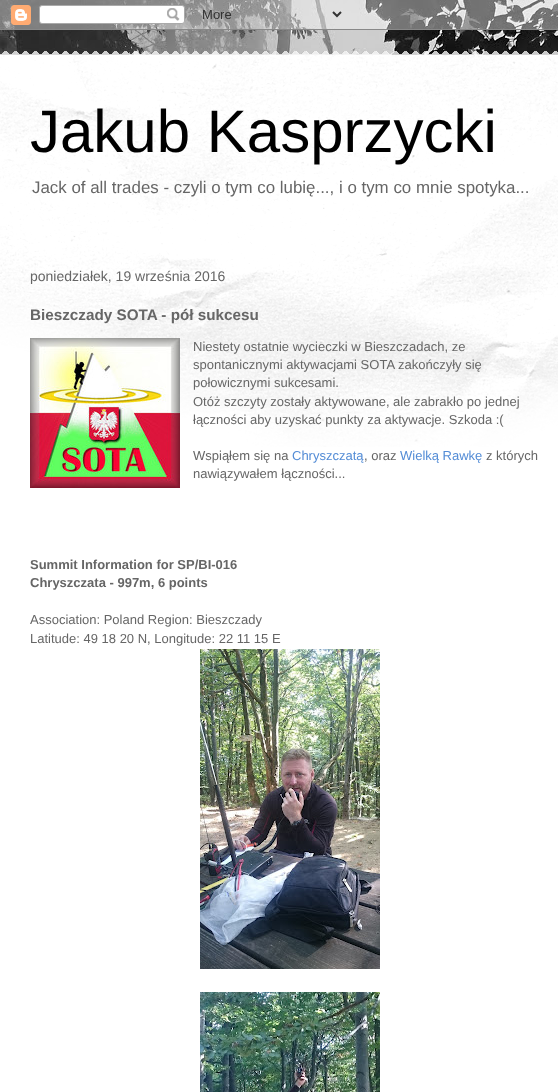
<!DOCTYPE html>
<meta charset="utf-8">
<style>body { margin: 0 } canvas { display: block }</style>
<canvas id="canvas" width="558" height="1092"></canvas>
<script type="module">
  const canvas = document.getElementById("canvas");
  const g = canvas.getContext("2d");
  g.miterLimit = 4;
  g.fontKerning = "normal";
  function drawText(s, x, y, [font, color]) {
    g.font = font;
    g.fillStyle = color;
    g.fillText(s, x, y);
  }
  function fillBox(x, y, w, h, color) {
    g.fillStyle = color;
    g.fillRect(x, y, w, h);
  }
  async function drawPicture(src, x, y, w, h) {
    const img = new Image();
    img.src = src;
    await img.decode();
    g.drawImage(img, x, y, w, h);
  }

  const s1 = ["60px Liberation Sans", "#000000"];
  const s2 = ["16.9px Liberation Sans", "#666666"];
  const s3 = ["14px Liberation Sans", "#666666"];
  const s4 = ["bold 15.25px Liberation Sans", "#666666"];
  const s5 = ["13px Liberation Sans", "#666666"];
  const s6 = ["13px Liberation Sans", "#538CD6"];
  const s7 = ["bold 13px Liberation Sans", "#666666"];

  fillBox(0, 0, 558, 1092, "#FFFFFF");
  await drawPicture("pic1.png", 0, 0, 558, 55);
  await drawPicture("pic2.png", 0, 0, 558, 30);
  await drawPicture("pic3.png", 0, 51, 558, 4);
  await drawPicture("pic4.png", 0, 55, 558, 392);
  drawText("Jakub Kasprzycki", 30, 152, s1);
  drawText("Jack of all trades - czyli o tym co lubię..., i o tym co mnie spotyka...", 32, 193, s2);
  drawText("poniedziałek, 19 września 2016", 30, 281, s3);
  drawText("Bieszczady SOTA - pół sukcesu", 30, 320, s4);
  await drawPicture("pic5.png", 30, 338, 150, 150);
  drawText("Niestety ostatnie wycieczki w Bieszczadach, ze", 193, 351, s5);
  drawText("spontanicznymi aktywacjami SOTA zakończyły się", 193, 369, s5);
  drawText("połowicznymi sukcesami.", 193, 387, s5);
  drawText("Otóż szczyty zostały aktywowane, ale zabrakło po jednej", 193, 406, s5);
  drawText("łączności aby uzyskać punkty za aktywacje. Szkoda :(", 193, 424, s5);
  drawText("Wspiąłem się na", 193, 460, s5);
  drawText("Chryszczatą", 292, 460, s6);
  drawText(", oraz", 364, 460, s5);
  drawText("Wielką Rawkę", 400, 460, s6);
  drawText("z których", 486, 460, s5);
  drawText("nawiązywałem łączności...", 193, 478, s5);
  drawText("Summit Information for SP/BI-016", 30, 569, s7);
  drawText("Chryszczata - 997m, 6 points", 30, 587, s7);
  drawText("Association: Poland Region: Bieszczady", 30, 624, s5);
  drawText("Latitude: 49 18 20 N, Longitude: 22 11 15 E", 30, 643, s5);
  await drawPicture("pic6.png", 200, 649, 180, 320);
  await drawPicture("pic7.png", 200, 992, 180, 100);
</script>
